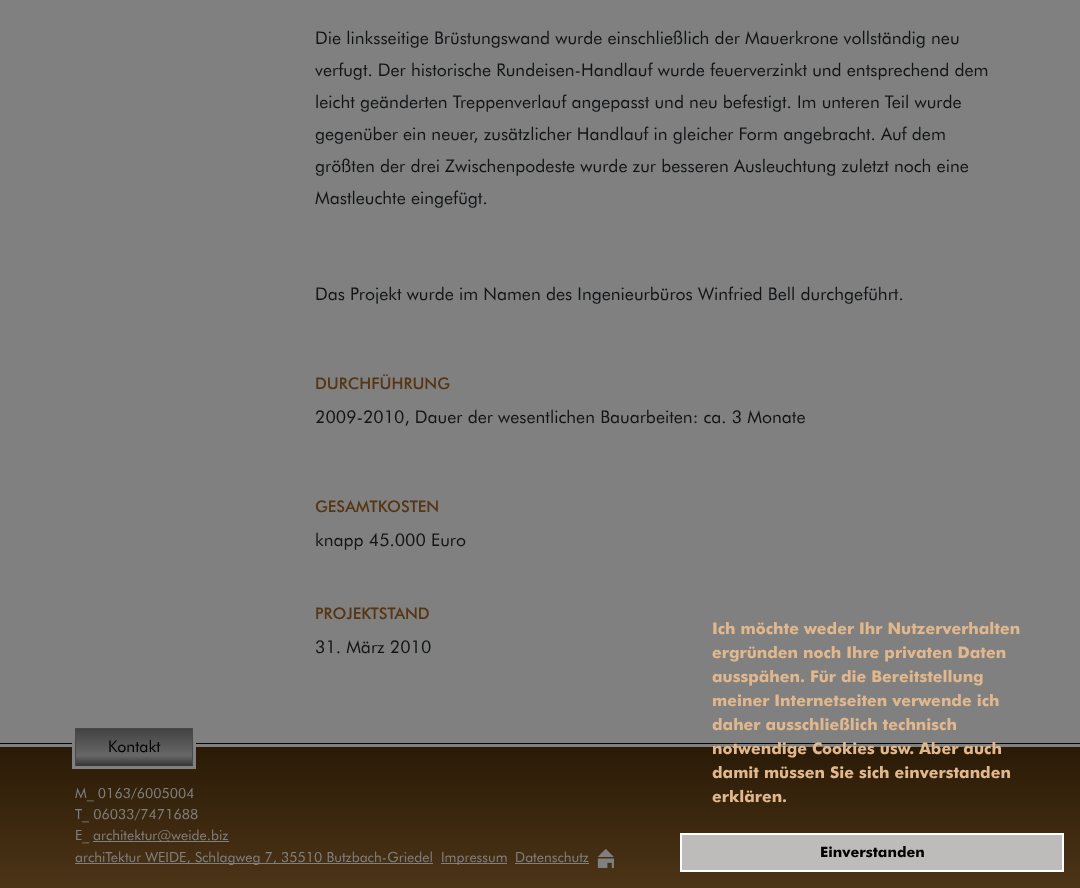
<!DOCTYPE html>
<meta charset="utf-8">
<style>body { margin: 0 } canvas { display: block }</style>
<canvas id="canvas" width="1080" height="888"></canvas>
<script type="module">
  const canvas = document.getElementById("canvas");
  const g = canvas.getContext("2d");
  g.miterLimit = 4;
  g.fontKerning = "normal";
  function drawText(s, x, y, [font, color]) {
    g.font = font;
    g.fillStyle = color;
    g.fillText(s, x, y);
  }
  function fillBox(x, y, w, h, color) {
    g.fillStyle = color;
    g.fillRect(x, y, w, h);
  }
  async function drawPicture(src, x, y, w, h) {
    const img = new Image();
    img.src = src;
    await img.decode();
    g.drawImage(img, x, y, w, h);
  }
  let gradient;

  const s1 = ["17.6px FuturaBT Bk", "#111315"];
  const s2 = ["500 16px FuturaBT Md", "#553512"];
  const s3 = ["16px FuturaBT Bk", "#000000"];
  const s4 = ["14px FuturaBT Bk", "#808080"];
  const s5 = ["bold 16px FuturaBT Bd", "#E1B78D"];
  const s6 = ["bold 14.5px FuturaBT Bd", "#000000"];

  fillBox(0, 0, 1080, 888, "#808080");
  drawText("Die linksseitige Brüstungswand wurde einschließlich der Mauerkrone vollständig neu", 315, 44, s1);
  drawText("verfugt. Der historische Rundeisen-Handlauf wurde feuerverzinkt und entsprechend dem", 315, 76, s1);
  drawText("leicht geänderten Treppenverlauf angepasst und neu befestigt. Im unteren Teil wurde", 315, 108, s1);
  drawText("gegenüber ein neuer, zusätzlicher Handlauf in gleicher Form angebracht. Auf dem", 315, 140, s1);
  drawText("größten der drei Zwischenpodeste wurde zur besseren Ausleuchtung zuletzt noch eine", 315, 172, s1);
  drawText("Mastleuchte eingefügt.", 315, 204, s1);
  drawText("Das Projekt wurde im Namen des Ingenieurbüros Winfried Bell durchgeführt.", 315, 300, s1);
  drawText("DURCHFÜHRUNG", 315, 389, s2);
  drawText("2009-2010, Dauer der wesentlichen Bauarbeiten: ca. 3 Monate", 315, 423, s1);
  drawText("GESAMTKOSTEN", 315, 512, s2);
  drawText("knapp 45.000 Euro", 315, 546, s1);
  drawText("PROJEKTSTAND", 315, 619, s2);
  drawText("31. März 2010", 315, 653, s1);
  fillBox(0, 743, 1080, 1, "#070707");
  gradient = g.createLinearGradient(540, 747, 540, 888);
  gradient.addColorStop(0, "#2A1A06");
  gradient.addColorStop(1, "#4C3417");
  g.fillStyle = gradient;
  g.fillRect(0, 747, 1080, 141);
  g.strokeStyle = "#808080";
  g.lineWidth = 3;
  g.strokeRect(73.5, 726.5, 121, 41);
  gradient = g.createLinearGradient(134, 729, 134, 765);
  gradient.addColorStop(0, "#444343");
  gradient.addColorStop(0.74, "#686767");
  gradient.addColorStop(1, "#383838");
  g.fillStyle = gradient;
  g.fillRect(76, 729, 116, 36);
  fillBox(75, 728, 118, 1, "#494949");
  fillBox(192, 728, 1, 38, "#494949");
  fillBox(75, 765, 118, 1, "#383838");
  fillBox(75, 728, 1, 38, "#494949");
  drawText("Kontakt", 108, 752, s3);
  drawText("M_ 0163/6005004", 75, 798, s4);
  drawText("T_ 06033/7471688", 75, 819, s4);
  drawText("E_", 75, 840, s4);
  fillBox(93, 841, 136, 1, "#808080");
  drawText("architektur@weide.biz", 93, 840, s4);
  fillBox(75, 863, 358, 1, "#808080");
  drawText("archiTektur WEIDE, Schlagweg 7, 35510 Butzbach-Griedel", 75, 862, s4);
  fillBox(441, 863, 66, 1, "#808080");
  drawText("Impressum", 441, 862, s4);
  drawText("Datenschutz", 515, 862, s4);
  fillBox(515, 863, 74, 1, "#808080");
  await drawPicture("pic1.png", 597, 849, 17, 19);
  drawText("Ich möchte weder Ihr Nutzerverhalten", 712, 634, s5);
  drawText("ergründen noch Ihre privaten Daten", 712, 658, s5);
  drawText("ausspähen. Für die Bereitstellung", 712, 682, s5);
  drawText("meiner Internetseiten verwende ich", 712, 706, s5);
  drawText("daher ausschließlich technisch", 712, 730, s5);
  drawText("notwendige Cookies usw. Aber auch", 712, 754, s5);
  drawText("damit müssen Sie sich einverstanden", 712, 778, s5);
  drawText("erklären.", 712, 802, s5);
  g.fillStyle = "#BDBCBB";
  g.beginPath();
  g.rect(681, 834, 382, 37);
  g.fill();
  g.strokeStyle = "#FFFFFF";
  g.lineWidth = 2;
  g.stroke();
  drawText("Einverstanden", 820, 857, s6);
</script>
